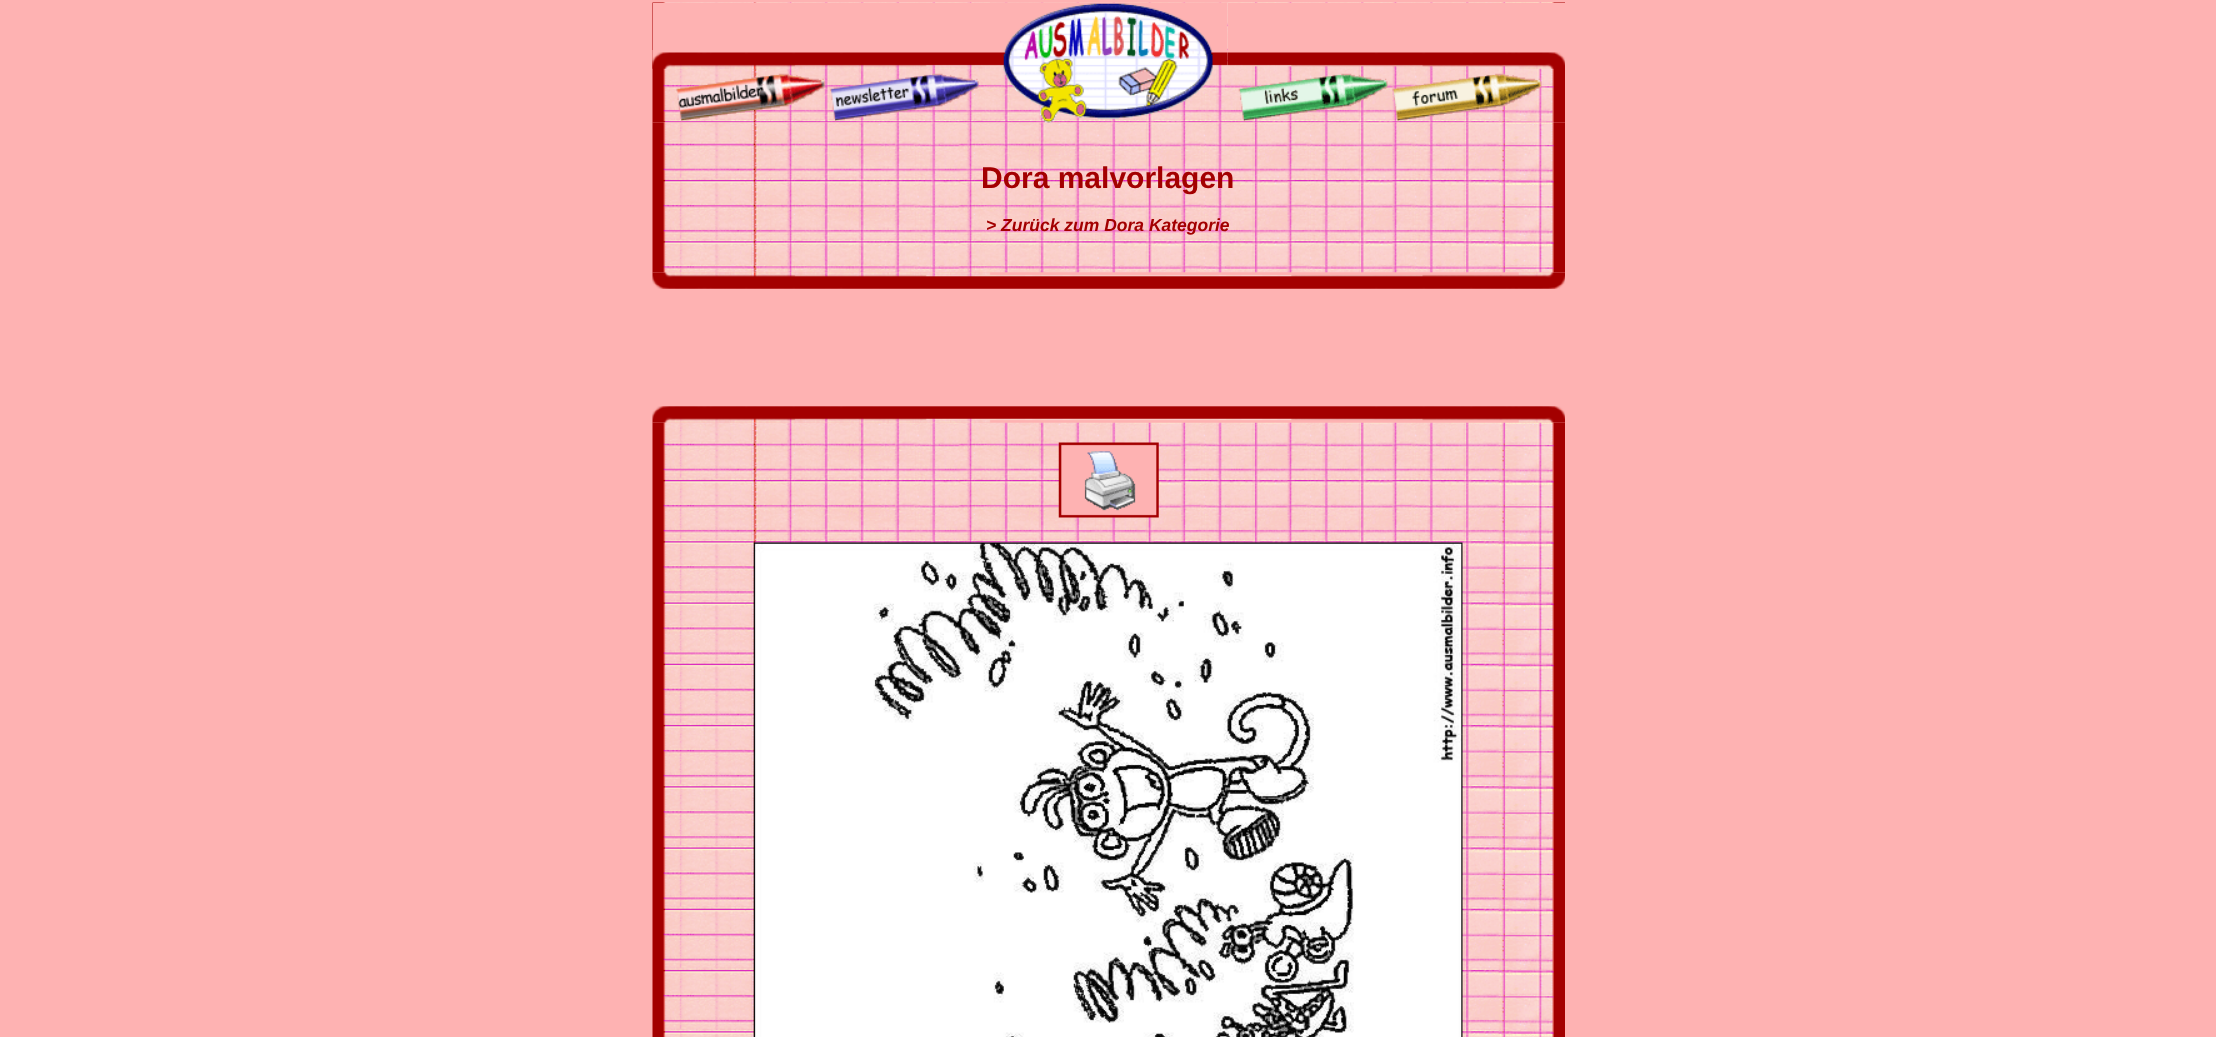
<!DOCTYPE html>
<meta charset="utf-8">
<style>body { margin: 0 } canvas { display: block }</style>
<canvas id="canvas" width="2216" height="1037"></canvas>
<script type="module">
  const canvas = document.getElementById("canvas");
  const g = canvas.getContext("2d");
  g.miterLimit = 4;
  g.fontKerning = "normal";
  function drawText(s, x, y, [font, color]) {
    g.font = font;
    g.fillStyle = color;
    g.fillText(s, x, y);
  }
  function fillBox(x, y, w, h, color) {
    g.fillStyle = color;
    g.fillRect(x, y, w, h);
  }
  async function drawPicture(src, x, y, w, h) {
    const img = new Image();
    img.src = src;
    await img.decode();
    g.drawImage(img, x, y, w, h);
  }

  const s1 = ["bold 30px Liberation Sans", "#A30000"];
  const s2 = ["italic bold 17.5px Liberation Sans", "#A30000"];

  fillBox(0, 0, 2216, 1037, "#FEB2B2");
  await drawPicture("pic1.png", 652, 2, 913, 121);
  fillBox(653, 3, 337, 47, "#FEB2B2");
  await drawPicture("pic7.png", 652, 122, 913, 151);
  await drawPicture("pic2.png", 990, 2, 238, 121);
  fillBox(1228, 3, 337, 47, "#FEB2B2");
  await drawPicture("pic3.png", 652, 50, 338, 19);
  await drawPicture("pic4.png", 1227, 50, 338, 19);
  await drawPicture("pic5.png", 676, 73, 303, 49);
  await drawPicture("pic6.png", 1238, 73, 304, 49);
  drawText("Dora malvorlagen", 981, 188, s1);
  drawText("> Zurück zum Dora Kategorie", 986, 231, s2);
  await drawPicture("pic8.png", 652, 272, 913, 17);
  await drawPicture("pic10.png", 652, 422, 913, 615);
  await drawPicture("pic9.png", 652, 406, 913, 17);
  await drawPicture("pic11.png", 1058, 442, 101, 76);
  await drawPicture("pic12.png", 753, 542, 710, 495);
</script>
